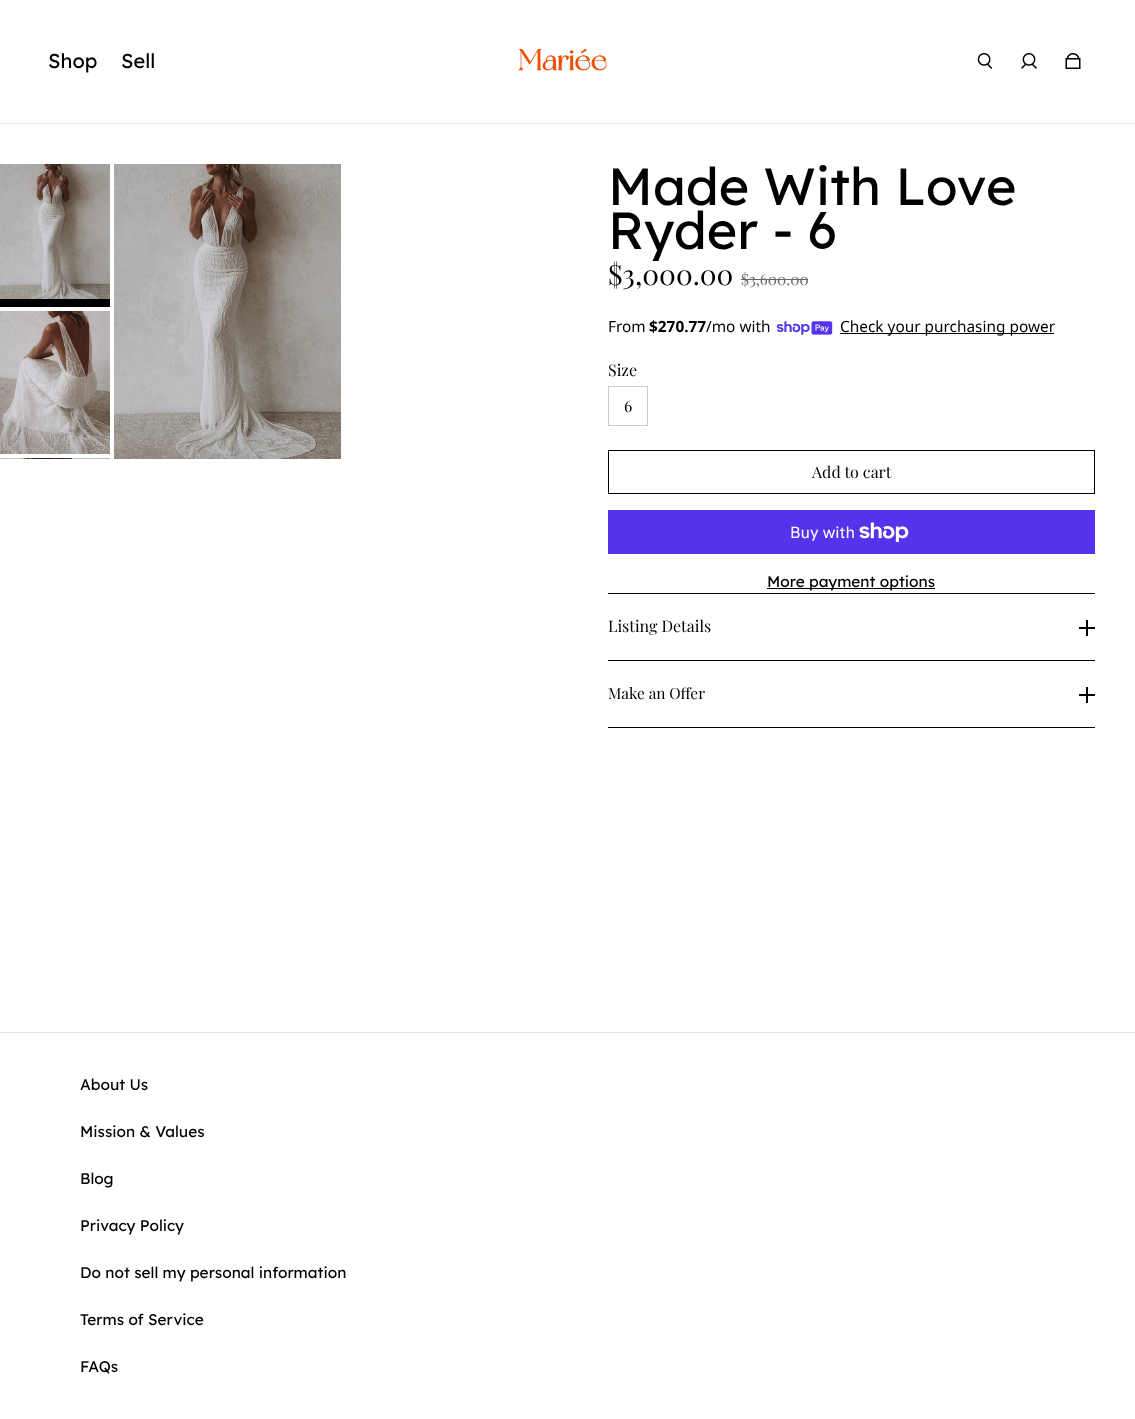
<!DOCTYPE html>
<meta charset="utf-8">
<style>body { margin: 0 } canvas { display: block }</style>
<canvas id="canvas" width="1135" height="1419"></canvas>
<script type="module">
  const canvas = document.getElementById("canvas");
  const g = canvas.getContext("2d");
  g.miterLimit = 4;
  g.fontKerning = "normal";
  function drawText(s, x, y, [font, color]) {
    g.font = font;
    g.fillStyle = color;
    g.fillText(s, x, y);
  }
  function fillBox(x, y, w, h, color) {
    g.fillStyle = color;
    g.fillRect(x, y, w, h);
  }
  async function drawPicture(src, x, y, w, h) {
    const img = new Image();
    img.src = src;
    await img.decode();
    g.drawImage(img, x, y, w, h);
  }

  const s1 = ["20px Lexend", "#000000"];
  const s2 = ["52px Lexend", "#000000"];
  const s3 = ["28px Playfair Display", "#000000"];
  const s4 = ["15.4px Playfair Display", "#666666"];
  const s5 = ["15.4px Noto Sans", "#000000"];
  const s6 = ["bold 15.4px Noto Sans", "#000000"];
  const s7 = ["16px Playfair Display", "#000000"];
  const s8 = ["16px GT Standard", "#FFFFFF"];
  const s9 = ["15.4px Lexend", "#000000"];
  const s10 = ["15.4px Playfair Display", "#000000"];

  fillBox(0, 0, 1135, 1419, "#FFFFFF");
  fillBox(0, 123, 1135, 1, "#E6E6E6");
  drawText("Shop", 48, 68, s1);
  drawText("Sell", 121, 68, s1);
  await drawPicture("pic1.png", 518, 48, 89, 23);
  await drawPicture("pic2.png", 977, 53, 16, 16);
  await drawPicture("pic3.png", 1021, 53, 16, 16);
  await drawPicture("pic4.png", 1065, 53, 16, 16);
  await drawPicture("pic5.png", 0, 164, 110, 135);
  fillBox(0, 299, 110, 8, "#000000");
  await drawPicture("pic6.png", 0, 311, 110, 143);
  await drawPicture("pic7.png", 0, 458, 110, 1);
  await drawPicture("pic8.png", 114, 164, 227, 295);
  drawText("Made With Love", 608, 205, s2);
  drawText("Ryder - 6", 608, 249, s2);
  drawText("$3,000.00", 608, 285, s3);
  drawText("$3,600.00", 741, 285, s4);
  fillBox(741, 279, 67, 1, "#666666");
  drawText("From", 608, 332, s5);
  drawText("$270.77", 649, 332, s6);
  drawText("/mo with", 706, 332, s5);
  await drawPicture("pic9.png", 776, 321, 57, 14);
  fillBox(840, 333, 214, 1, "#000000");
  drawText("Check your purchasing power", 840, 332, s5);
  drawText("Size", 608, 376, s7);
  g.strokeStyle = "#CCCCCC";
  g.strokeRect(608.5, 386.5, 39, 39);
  drawText("6", 624, 412, s7);
  g.strokeStyle = "#000000";
  g.strokeRect(608.5, 450.5, 486, 43);
  drawText("Add to cart", 812, 478, s7);
  fillBox(608, 510, 487, 44, "#5433EB");
  drawText("Buy with", 790, 538, s8);
  await drawPicture("pic10.png", 859, 522, 50, 20);
  fillBox(767, 588, 168, 1, "#000000");
  drawText("More payment options", 767, 587, s9);
  fillBox(608, 593, 487, 1, "#000000");
  fillBox(608, 660, 487, 1, "#000000");
  drawText("Listing Details", 608, 632, s7);
  fillBox(1079, 627, 16, 2, "#000000");
  fillBox(1086, 620, 2, 16, "#000000");
  fillBox(608, 727, 487, 1, "#000000");
  drawText("Make an Offer", 608, 699, s10);
  fillBox(1079, 694, 16, 2, "#000000");
  fillBox(1086, 687, 2, 16, "#000000");
  fillBox(0, 1032, 1135, 1, "#E6E6E6");
  drawText("About Us", 80, 1090, s9);
  drawText("Mission & Values", 80, 1137, s9);
  drawText("Blog", 80, 1184, s9);
  drawText("Privacy Policy", 80, 1231, s9);
  drawText("Do not sell my personal information", 80, 1278, s9);
  drawText("Terms of Service", 80, 1325, s9);
  drawText("FAQs", 80, 1372, s9);
</script>
